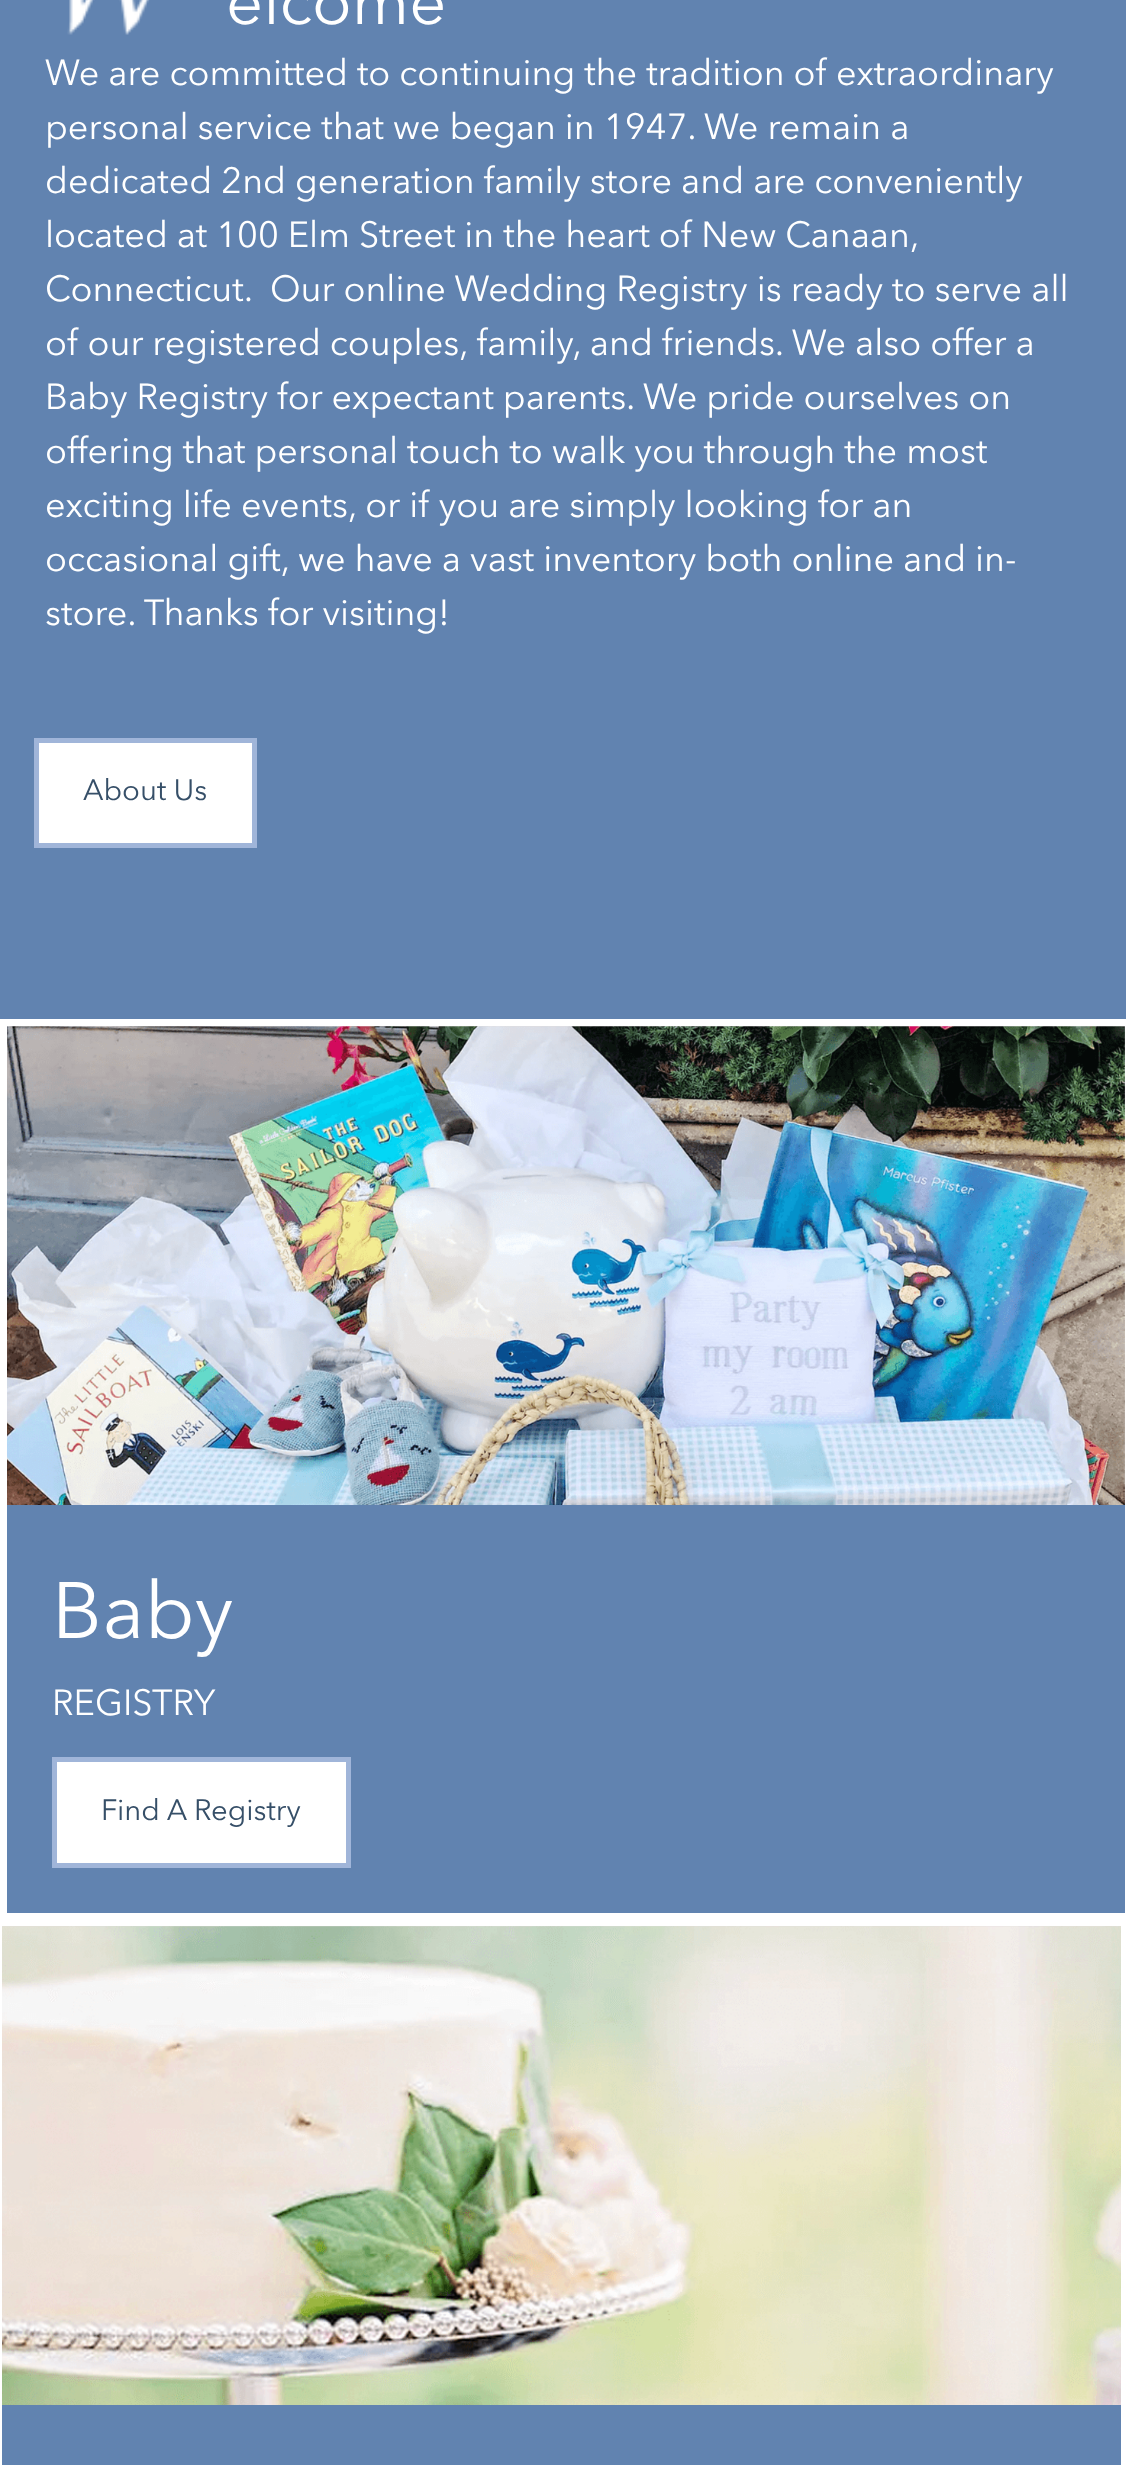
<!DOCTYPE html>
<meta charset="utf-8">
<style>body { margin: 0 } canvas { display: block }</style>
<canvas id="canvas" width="1126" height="2465"></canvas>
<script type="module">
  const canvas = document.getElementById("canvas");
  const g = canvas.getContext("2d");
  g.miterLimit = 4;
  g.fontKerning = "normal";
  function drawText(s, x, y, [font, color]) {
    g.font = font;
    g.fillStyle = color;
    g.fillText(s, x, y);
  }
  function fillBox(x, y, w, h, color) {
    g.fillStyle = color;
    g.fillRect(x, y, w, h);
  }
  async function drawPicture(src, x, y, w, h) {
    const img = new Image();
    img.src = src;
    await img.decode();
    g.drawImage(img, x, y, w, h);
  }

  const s1 = ["65px Avenir Next", "#FFFFFF"];
  const s2 = ["36px Avenir Next", "#FFFFFF"];
  const s3 = ["29.25px Avenir Next", "#364F68"];
  const s4 = ["79px Avenir Next", "#FFFFFF"];

  fillBox(0, 0, 1126, 2465, "#DEDBDB");
  fillBox(0, 0, 1126, 1019, "#6183B0");
  await drawPicture("pic1.png", 67, 0, 83, 35);
  drawText("elcome", 226, 24, s1);
  drawText("We are committed to continuing the tradition of extraordinary", 45, 85, s2);
  drawText("personal service that we began in 1947. We remain a", 45, 139, s2);
  drawText("dedicated 2nd generation family store and are conveniently", 45, 193, s2);
  drawText("located at 100 Elm Street in the heart of New Canaan,", 45, 247, s2);
  drawText("Connecticut.  Our online Wedding Registry is ready to serve all", 45, 301, s2);
  drawText("of our registered couples, family, and friends. We also offer a", 45, 355, s2);
  drawText("Baby Registry for expectant parents. We pride ourselves on", 45, 409, s2);
  drawText("offering that personal touch to walk you through the most", 45, 463, s2);
  drawText("exciting life events, or if you are simply looking for an", 45, 517, s2);
  drawText("occasional gift, we have a vast inventory both online and in-", 45, 571, s2);
  drawText("store. Thanks for visiting!", 45, 625, s2);
  g.beginPath();
  g.rect(36.5, 740.5, 218, 105);
  g.fill();
  g.strokeStyle = "#A0B5D9";
  g.lineWidth = 5;
  g.stroke();
  drawText("About Us", 83, 800, s3);
  await drawPicture("pic2.png", 7, 1026, 1118, 479);
  fillBox(0, 1019, 1126, 7, "#FFFFFF");
  fillBox(1125, 1019, 1, 900, "#FFFFFF");
  fillBox(0, 1913, 1126, 13, "#FFFFFF");
  fillBox(0, 1019, 7, 900, "#FFFFFF");
  fillBox(7, 1505, 1118, 408, "#6183B0");
  drawText("Baby", 52, 1638, s4);
  drawText("REGISTRY", 52, 1715, s2);
  g.beginPath();
  g.rect(54.5, 1759.5, 294, 106);
  g.fill();
  g.stroke();
  drawText("Find A Registry", 101, 1820, s3);
  await drawPicture("pic3.png", 2, 1926, 1119, 479);
  fillBox(1121, 1919, 5, 546, "#FFFFFF");
  fillBox(0, 1919, 2, 546, "#FFFFFF");
  fillBox(2, 2405, 1119, 60, "#6183B0");
</script>
